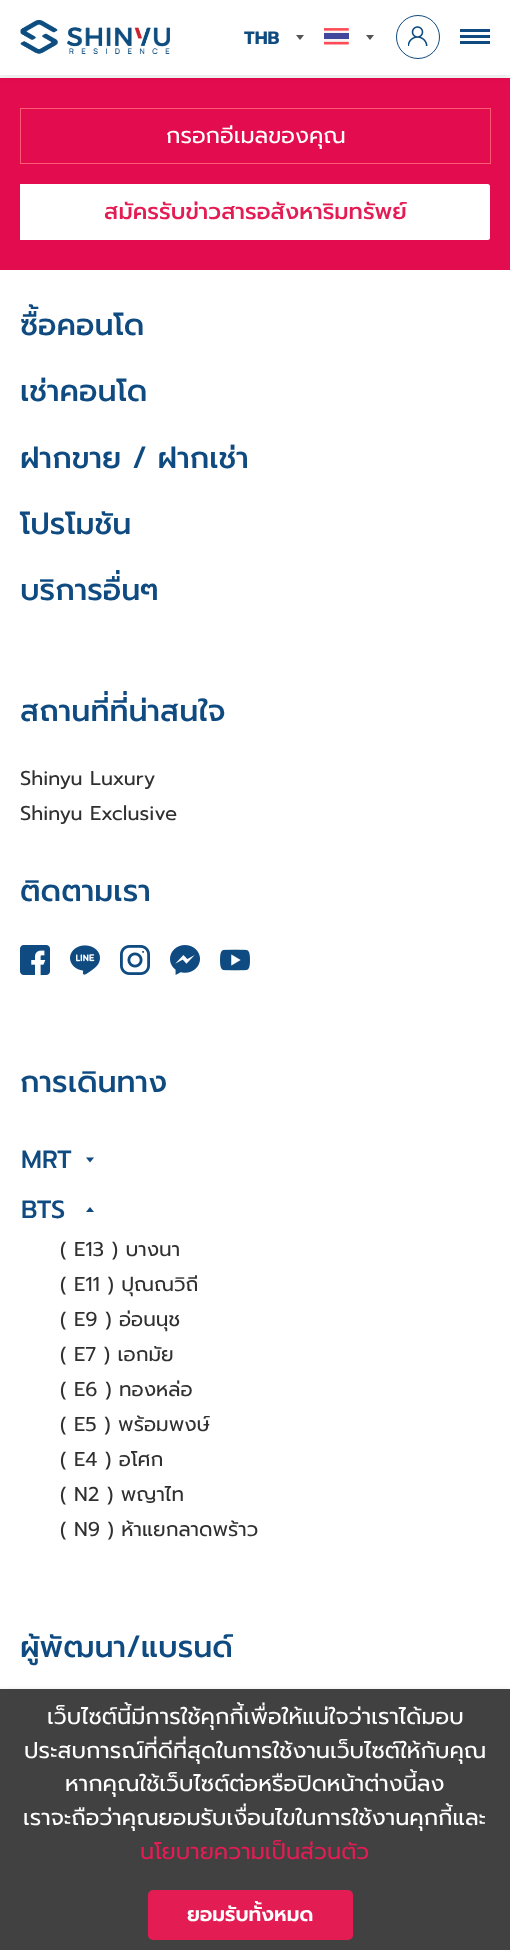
<!DOCTYPE html>
<meta charset="utf-8">
<style>body { margin: 0 } canvas { display: block }</style>
<canvas id="canvas" width="510" height="1950"></canvas>
<script type="module">
  const canvas = document.getElementById("canvas");
  const g = canvas.getContext("2d");
  g.miterLimit = 4;
  g.fontKerning = "normal";
  function drawText(s, x, y, [font, color]) {
    g.font = font;
    g.fillStyle = color;
    g.fillText(s, x, y);
  }
  function fillBox(x, y, w, h, color) {
    g.fillStyle = color;
    g.fillRect(x, y, w, h);
  }
  function fillRounded(x, y, w, h, r, color) {
    g.fillStyle = color;
    g.beginPath();
    g.roundRect(x, y, w, h, r);
    g.fill();
  }
  async function drawPicture(src, x, y, w, h) {
    const img = new Image();
    img.src = src;
    await img.decode();
    g.drawImage(img, x, y, w, h);
  }

  const s1 = ["bold 18px Prompt", "#0F4B81"];
  const s2 = ["22.5px Prompt", "#FFFFFF"];
  const s3 = ["500 22.5px Prompt", "#E41C54"];
  const s4 = ["500 30px Prompt", "#0F4B81"];
  const s5 = ["20px Prompt", "#303030"];
  const s6 = ["500 25px Prompt", "#0F4B81"];
  const s7 = ["22.5px Prompt", "#E41C54"];
  const s8 = ["600 20px Prompt", "#FFFFFF"];

  fillBox(0, 0, 510, 1950, "#F5F6F8");
  fillBox(0, 78, 510, 192, "#E30C4E");
  g.fillStyle = "rgba(0, 0, 0, 0.08)";
  g.filter = "blur(5px)";
  g.beginPath();
  g.rect(0, 0, 510, 75);
  g.fill();
  g.filter = "none";
  fillBox(0, 0, 510, 75, "#FFFFFF");
  await drawPicture("pic1.png", 20, 20, 150, 34);
  drawText("THB", 244, 44, s1);
  g.fillStyle = "#545454";
  g.beginPath();
  g.moveTo(296, 35);
  g.lineTo(304, 35);
  g.lineTo(300, 40);
  g.closePath();
  g.fill();
  await drawPicture("pic2.png", 324, 28, 25, 17);
  g.beginPath();
  g.moveTo(366, 35);
  g.lineTo(374, 35);
  g.lineTo(370, 40);
  g.closePath();
  g.fill();
  g.beginPath();
  g.arc(418, 37, 21.5, 0, Math.PI * 2);
  g.strokeStyle = "#0F4B81";
  g.stroke();
  await drawPicture("pic3.png", 408, 26, 20, 20);
  fillBox(460, 29, 30, 3, "#0F4B81");
  fillBox(460, 35, 30, 3, "#0F4B81");
  fillBox(460, 41, 30, 3, "#0F4B81");
  g.strokeStyle = "#FF5B75";
  g.strokeRect(20.5, 108.5, 470, 55);
  drawText("กรอกอีเมลของคุณ", 166, 143, s2);
  g.beginPath();
  g.roundRect(20, 184, 470, 56, [0, 2.5, 2.5, 0]);
  g.fill();
  drawText("สมัครรับข่าวสารอสังหาริมทรัพย์", 104, 219, s3);
  fillBox(0, 270, 510, 1419, "#FFFFFF");
  drawText("ซื้อคอนโด", 20, 335, s4);
  drawText("เช่าคอนโด", 20, 401, s4);
  drawText("ฝากขาย / ฝากเช่า", 20, 468, s4);
  drawText("โปรโมชัน", 20, 534, s4);
  drawText("บริการอื่นๆ", 20, 600, s4);
  drawText("สถานที่ที่น่าสนใจ", 20, 721, s4);
  drawText("Shinyu Luxury", 20, 785, s5);
  drawText("Shinyu Exclusive", 20, 820, s5);
  drawText("ติดตามเรา", 20, 901, s4);
  await drawPicture("pic4.png", 20, 945, 30, 30);
  await drawPicture("pic5.png", 70, 945, 30, 30);
  await drawPicture("pic6.png", 120, 945, 30, 30);
  await drawPicture("pic7.png", 170, 945, 30, 30);
  await drawPicture("pic8.png", 220, 949, 30, 22);
  drawText("การเดินทาง", 20, 1092, s4);
  drawText("MRT", 21, 1168, s6);
  g.beginPath();
  g.moveTo(86, 1157.5);
  g.lineTo(94, 1157.5);
  g.lineTo(90, 1162.5);
  g.closePath();
  g.fill();
  drawText("BTS", 21, 1218, s6);
  g.beginPath();
  g.moveTo(86, 1212);
  g.lineTo(94, 1212);
  g.lineTo(90, 1207);
  g.closePath();
  g.fill();
  drawText("( E13 ) บางนา", 60, 1256, s5);
  drawText("( E11 ) ปุณณวิถี", 60, 1291, s5);
  drawText("( E9 ) อ่อนนุช", 60, 1326, s5);
  drawText("( E7 ) เอกมัย", 60, 1361, s5);
  drawText("( E6 ) ทองหล่อ", 60, 1396, s5);
  drawText("( E5 ) พร้อมพงษ์", 60, 1431, s5);
  drawText("( E4 ) อโศก", 60, 1466, s5);
  drawText("( N2 ) พญาไท", 60, 1501, s5);
  drawText("( N9 ) ห้าแยกลาดพร้าว", 60, 1536, s5);
  drawText("ผู้พัฒนา/แบรนด์", 20, 1657, s4);
  g.fillStyle = "rgba(0, 0, 0, 0.12)";
  g.filter = "blur(2.5px)";
  g.beginPath();
  g.rect(0, 1690, 510, 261);
  g.fill();
  g.filter = "none";
  fillBox(0, 1689, 510, 261, "#414141");
  drawText("เว็บไซต์นี้มีการใช้คุกกี้เพื่อให้แน่ใจว่าเราได้มอบ", 47, 1724, s2);
  drawText("ประสบการณ์ที่ดีที่สุดในการใช้งานเว็บไซต์ให้กับคุณ", 24, 1758, s2);
  drawText("หากคุณใช้เว็บไซต์ต่อหรือปิดหน้าต่างนี้ลง", 65, 1791, s2);
  drawText("เราจะถือว่าคุณยอมรับเงื่อนไขในการใช้งานคุกกี้และ", 23, 1825, s2);
  drawText("นโยบายความเป็นส่วนตัว", 140, 1859, s7);
  fillRounded(148, 1890, 205, 50, 5, "#E41C54");
  drawText("ยอมรับทั้งหมด", 187, 1921, s8);
</script>
